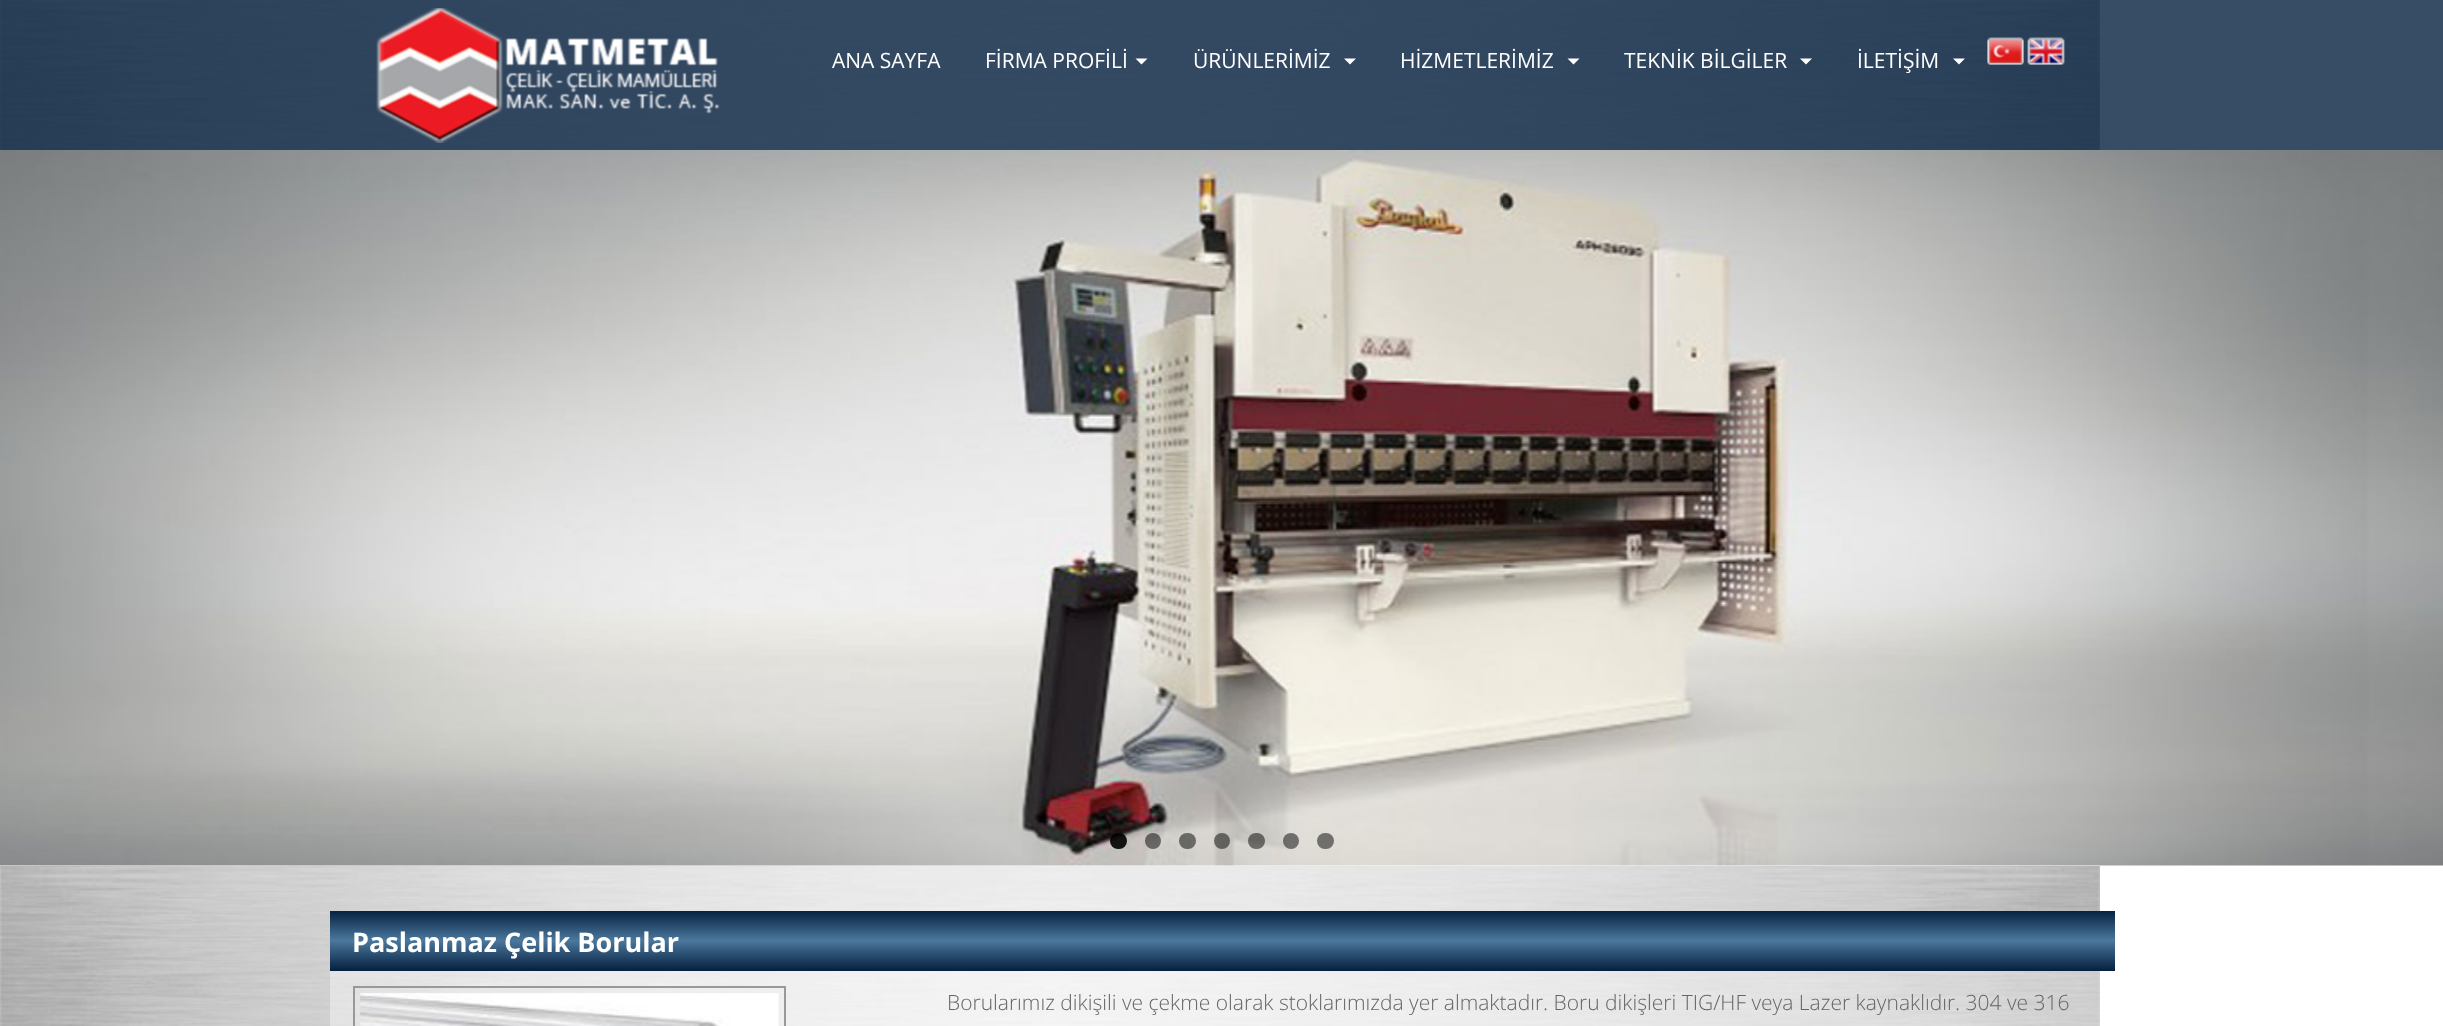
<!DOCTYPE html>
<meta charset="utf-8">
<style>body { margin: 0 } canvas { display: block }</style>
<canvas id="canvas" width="2443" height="1026"></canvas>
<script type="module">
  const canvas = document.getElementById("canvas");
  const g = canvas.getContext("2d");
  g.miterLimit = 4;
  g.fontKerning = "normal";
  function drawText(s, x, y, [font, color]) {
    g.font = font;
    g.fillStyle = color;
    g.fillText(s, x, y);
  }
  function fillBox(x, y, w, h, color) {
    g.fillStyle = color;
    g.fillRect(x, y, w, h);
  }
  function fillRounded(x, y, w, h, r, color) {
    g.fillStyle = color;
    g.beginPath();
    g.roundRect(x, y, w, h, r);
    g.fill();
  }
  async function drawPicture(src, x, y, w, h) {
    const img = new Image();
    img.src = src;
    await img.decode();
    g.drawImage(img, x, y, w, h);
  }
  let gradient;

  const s1 = ["21px Open Sans", "#FFFFFF"];
  const s2 = ["bold 27px Open Sans", "#FFFFFF"];
  const s3 = ["300 21px Open Sans", "#656565"];

  fillBox(0, 0, 2443, 1026, "#FFFFFF");
  await drawPicture("pic1.png", 0, 0, 2100, 1026);
  fillBox(0, 0, 2443, 150, "rgba(5, 31, 62, 0.8)");
  await drawPicture("pic2.png", 376, 8, 344, 135);
  drawText("ANA SAYFA", 832, 68, s1);
  drawText("FİRMA PROFİLİ", 985, 68, s1);
  g.beginPath();
  g.moveTo(1135.5, 58.5);
  g.lineTo(1147.5, 58.5);
  g.lineTo(1141.5, 64.5);
  g.closePath();
  g.fill();
  drawText("ÜRÜNLERİMİZ", 1193, 68, s1);
  g.beginPath();
  g.moveTo(1344, 58.5);
  g.lineTo(1356, 58.5);
  g.lineTo(1350, 64.5);
  g.closePath();
  g.fill();
  drawText("HİZMETLERİMİZ", 1400, 68, s1);
  g.beginPath();
  g.moveTo(1567.5, 58.5);
  g.lineTo(1579.5, 58.5);
  g.lineTo(1573.5, 64.5);
  g.closePath();
  g.fill();
  drawText("TEKNİK BİLGİLER", 1624, 68, s1);
  g.beginPath();
  g.moveTo(1800, 58.5);
  g.lineTo(1812, 58.5);
  g.lineTo(1806, 64.5);
  g.closePath();
  g.fill();
  drawText("İLETİŞİM", 1857, 68, s1);
  g.beginPath();
  g.moveTo(1953, 58.5);
  g.lineTo(1965, 58.5);
  g.lineTo(1959, 64.5);
  g.closePath();
  g.fill();
  await drawPicture("pic3.png", 1987, 37, 37, 28);
  await drawPicture("pic4.png", 2027, 37, 38, 28);
  fillBox(0, 865, 2100, 1, "#FFFFFF");
  await drawPicture("pic5.png", 0, 150, 2443, 716);
  fillRounded(1110, 833, 17, 16, 8, "rgba(0, 0, 0, 0.9)");
  g.fillStyle = "rgba(0, 0, 0, 0.5)";
  g.beginPath();
  g.arc(1153, 841, 8, 0, Math.PI * 2);
  g.fill();
  fillRounded(1179, 833, 17, 16, 8, "rgba(0, 0, 0, 0.5)");
  g.beginPath();
  g.arc(1222, 841, 8, 0, Math.PI * 2);
  g.fill();
  fillRounded(1248, 833, 17, 16, 8, "rgba(0, 0, 0, 0.5)");
  g.beginPath();
  g.arc(1291, 841, 8, 0, Math.PI * 2);
  g.fill();
  fillRounded(1317, 833, 17, 16, 8, "#706F6B");
  fillBox(330, 971, 1770, 55, "rgba(255, 255, 255, 0.4)");
  gradient = g.createLinearGradient(1223, 910, 1223, 971);
  gradient.addColorStop(0, "#051F3E");
  gradient.addColorStop(0.5, "#4A789D");
  gradient.addColorStop(1, "#051F3E");
  g.fillStyle = gradient;
  g.fillRect(330, 911, 1785, 60);
  drawText("Paslanmaz Çelik Borular", 352, 952, s2);
  g.strokeStyle = "#999999";
  g.lineWidth = 2;
  g.strokeRect(354, 987, 431, 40);
  await drawPicture("pic6.png", 360, 993, 419, 33);
  drawText("Borularımız dikişili ve çekme olarak stoklarımızda yer almaktadır. Boru dikişleri TIG/HF veya Lazer kaynaklıdır. 304 ve 316", 947, 1010, s3);
</script>
